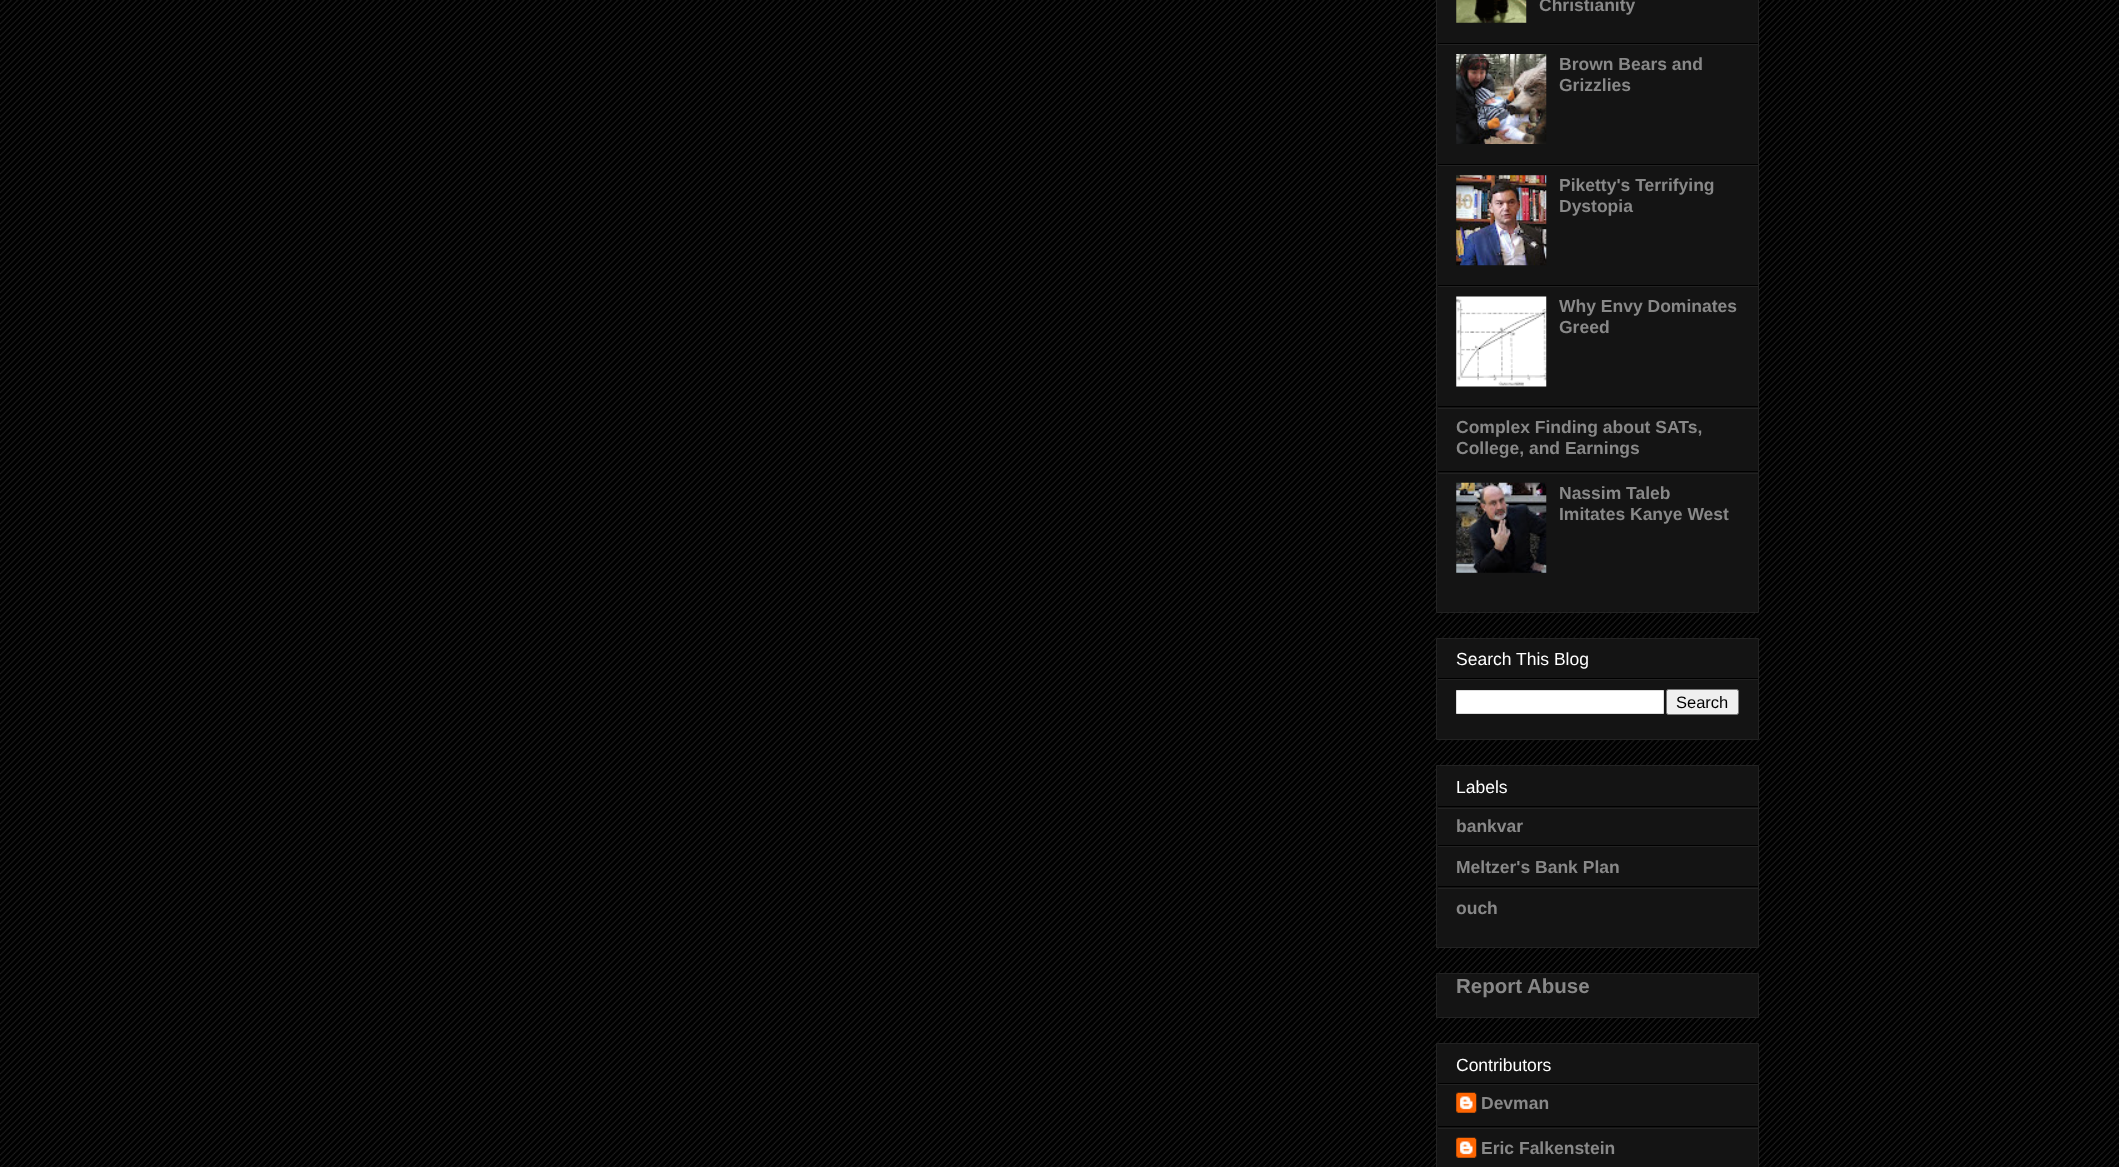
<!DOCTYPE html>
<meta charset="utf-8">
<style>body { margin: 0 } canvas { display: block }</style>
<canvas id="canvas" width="2119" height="1167"></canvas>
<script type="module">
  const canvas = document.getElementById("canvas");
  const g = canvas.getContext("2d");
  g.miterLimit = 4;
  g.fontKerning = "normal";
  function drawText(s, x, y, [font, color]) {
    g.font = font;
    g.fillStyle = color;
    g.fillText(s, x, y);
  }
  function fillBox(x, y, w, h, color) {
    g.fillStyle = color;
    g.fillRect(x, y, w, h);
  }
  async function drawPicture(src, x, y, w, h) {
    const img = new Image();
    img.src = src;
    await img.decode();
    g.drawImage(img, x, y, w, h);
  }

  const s1 = ["bold 17.5px Liberation Sans", "#888888"];
  const s2 = ["17.5px Liberation Sans", "#FFFFFF"];
  const s3 = ["16.5px Liberation Sans", "#000000"];
  const s4 = ["bold 20.5px Liberation Sans", "#888888"];

  fillBox(0, 0, 2119, 1167, "#000000");
  await drawPicture("pic1.png", 0, 0, 2119, 1167);
  g.fillStyle = "#141414";
  g.beginPath();
  g.rect(1436.5, -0.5, 322, 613);
  g.fill();
  g.strokeStyle = "#222222";
  g.stroke();
  fillBox(1438, 43, 320, 1, "#000000");
  await drawPicture("pic2.png", 1456, 0, 71, 23);
  drawText("Christianity", 1539, 11, s1);
  fillBox(1438, 44, 320, 1, "#222222");
  fillBox(1438, 164, 320, 1, "#000000");
  await drawPicture("pic3.png", 1456, 54, 91, 90);
  drawText("Brown Bears and", 1559, 70, s1);
  drawText("Grizzlies", 1559, 91, s1);
  fillBox(1438, 165, 320, 1, "#222222");
  fillBox(1438, 285, 320, 1, "#000000");
  await drawPicture("pic4.png", 1456, 175, 91, 91);
  drawText("Piketty's Terrifying", 1559, 191, s1);
  drawText("Dystopia", 1559, 212, s1);
  fillBox(1438, 286, 320, 1, "#222222");
  fillBox(1438, 406, 320, 1, "#000000");
  await drawPicture("pic5.png", 1456, 296, 91, 91);
  drawText("Why Envy Dominates", 1559, 312, s1);
  drawText("Greed", 1559, 333, s1);
  fillBox(1438, 408, 320, 1, "#222222");
  fillBox(1438, 471, 320, 1, "#000000");
  drawText("Complex Finding about SATs,", 1456, 433, s1);
  drawText("College, and Earnings", 1456, 454, s1);
  fillBox(1438, 473, 320, 1, "#222222");
  await drawPicture("pic6.png", 1456, 482, 91, 91);
  drawText("Nassim Taleb", 1559, 499, s1);
  drawText("Imitates Kanye West", 1559, 520, s1);
  g.fillStyle = "#141414";
  g.beginPath();
  g.rect(1436.5, 638.5, 322, 101);
  g.fill();
  g.stroke();
  fillBox(1438, 678, 320, 1, "#000000");
  drawText("Search This Blog", 1456, 665, s2);
  fillBox(1438, 679, 320, 1, "#222222");
  g.fillStyle = "#FFFFFF";
  g.beginPath();
  g.rect(1456.5, 690.5, 207, 23);
  g.fill();
  g.strokeStyle = "#DDDDDD";
  g.stroke();
  g.fillStyle = "#EFEFEF";
  g.beginPath();
  g.roundRect(1666.5, 689.5, 72, 25, 2);
  g.fill();
  g.strokeStyle = "#767676";
  g.stroke();
  drawText("Search", 1676, 708, s3);
  g.fillStyle = "#141414";
  g.beginPath();
  g.rect(1436.5, 765.5, 322, 182);
  g.fill();
  g.strokeStyle = "#222222";
  g.stroke();
  fillBox(1438, 806, 320, 1, "#000000");
  drawText("Labels", 1456, 793, s2);
  fillBox(1438, 808, 320, 1, "#222222");
  fillBox(1438, 845, 320, 1, "#000000");
  drawText("bankvar", 1456, 832, s1);
  fillBox(1438, 846, 320, 1, "#222222");
  fillBox(1438, 886, 320, 1, "#000000");
  drawText("Meltzer's Bank Plan", 1456, 873, s1);
  fillBox(1438, 888, 320, 1, "#222222");
  drawText("ouch", 1456, 914, s1);
  g.fillStyle = "#141414";
  g.beginPath();
  g.rect(1436.5, 973.5, 322, 44);
  g.fill();
  g.stroke();
  drawText("Report Abuse", 1456, 993, s4);
  g.fillStyle = "#141414";
  g.beginPath();
  g.rect(1436.5, 1043.5, 322, 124);
  g.fill();
  g.stroke();
  fillBox(1438, 1083, 320, 1, "#000000");
  drawText("Contributors", 1456, 1071, s2);
  fillBox(1438, 1084, 320, 1, "#222222");
  fillBox(1438, 1126, 320, 1, "#000000");
  await drawPicture("pic7.png", 1456, 1092, 21, 21);
  drawText("Devman", 1481, 1109, s1);
  fillBox(1438, 1128, 320, 1, "#222222");
  await drawPicture("pic7.png", 1456, 1137, 21, 21);
  drawText("Eric Falkenstein", 1481, 1154, s1);
</script>
